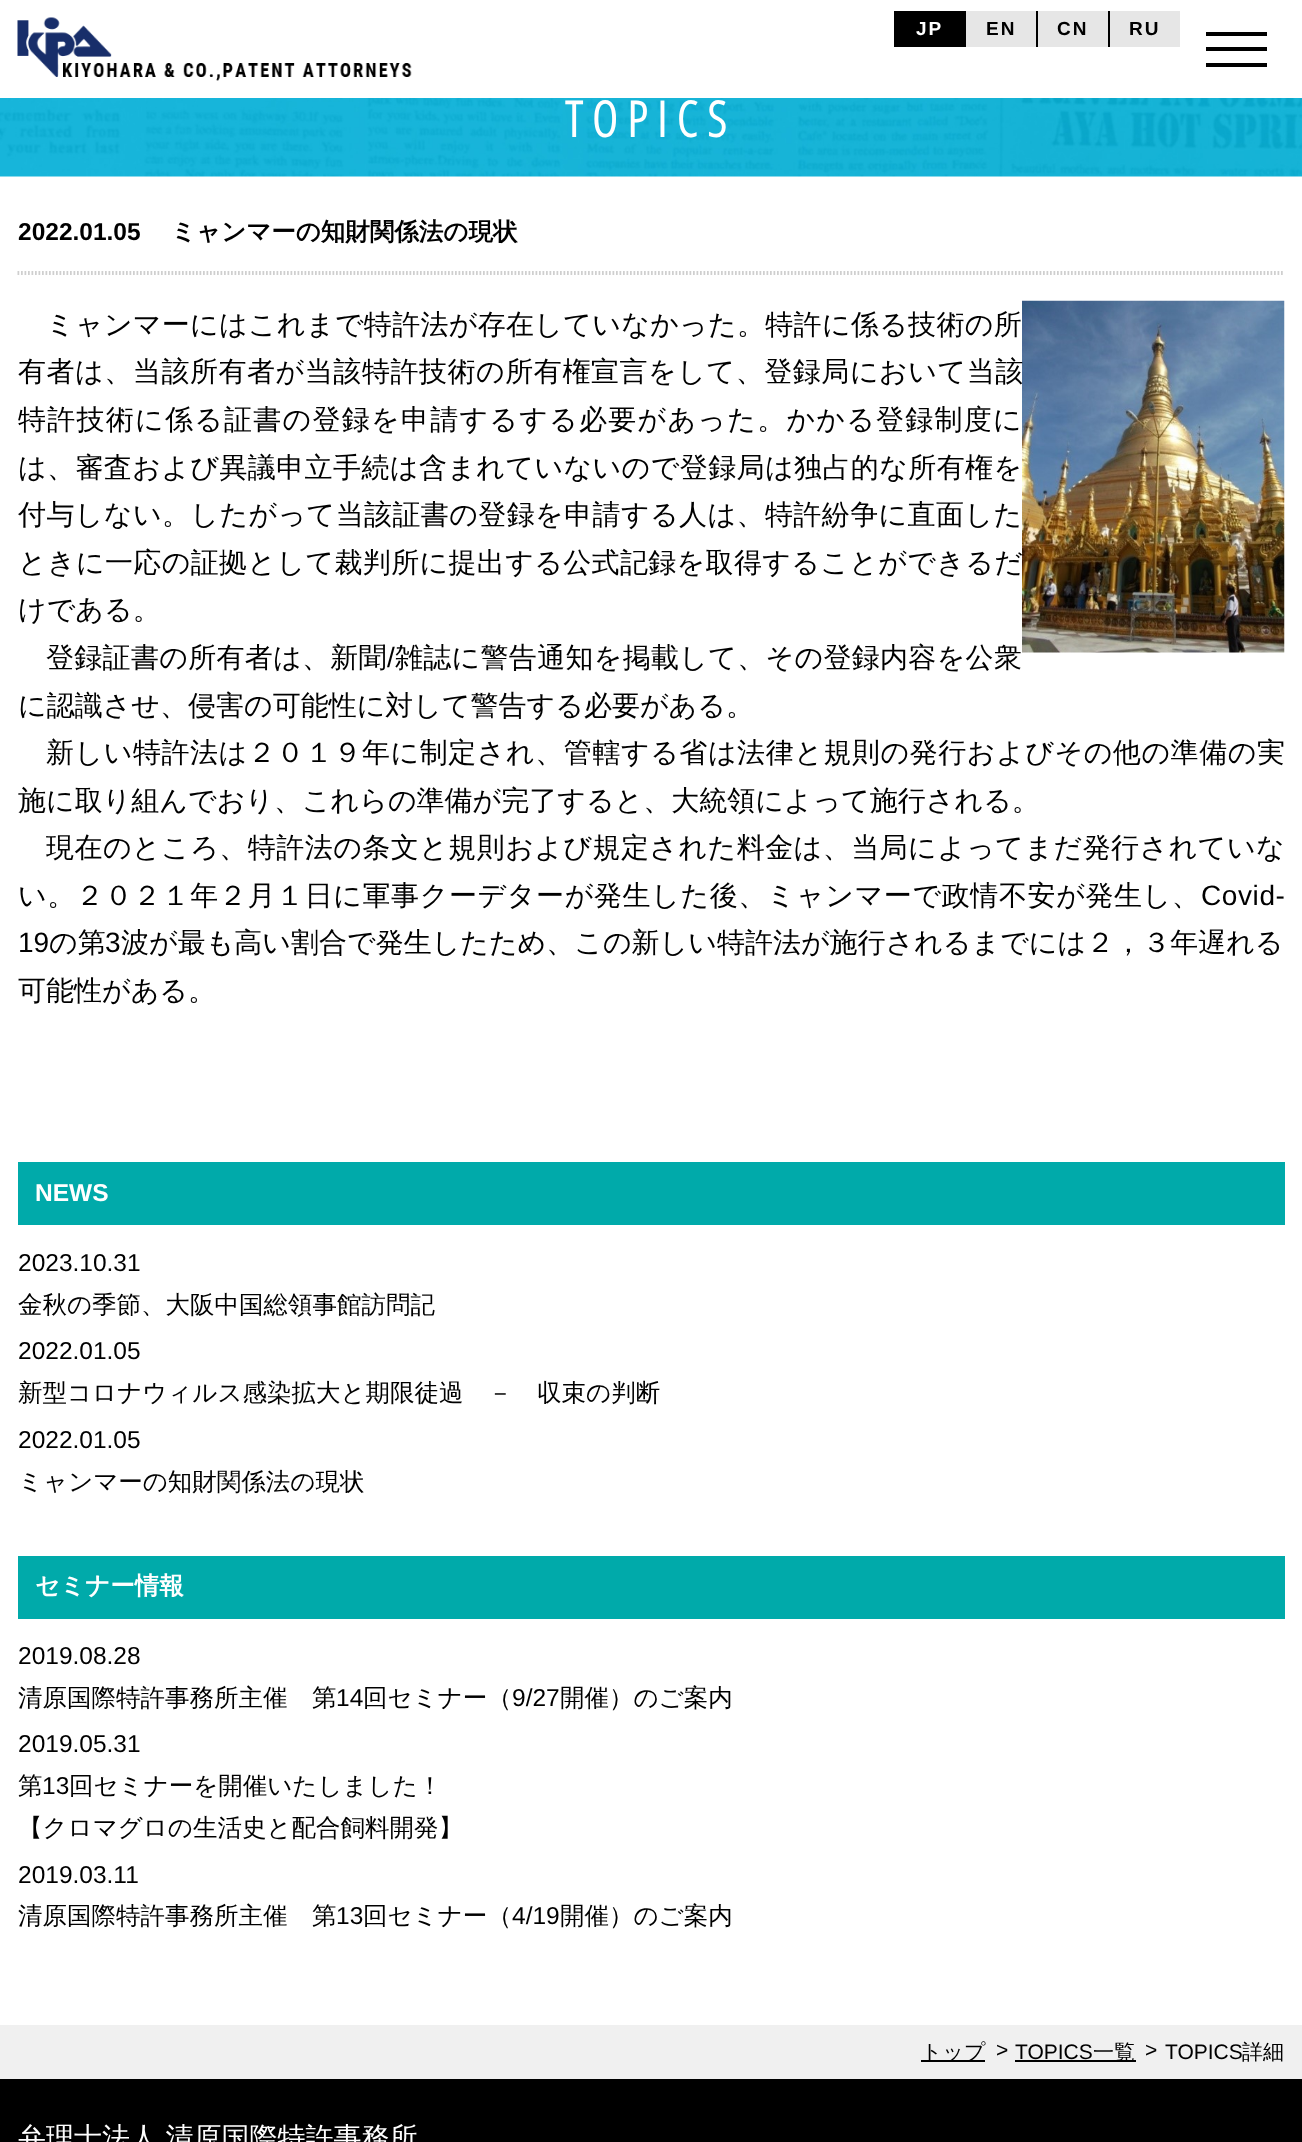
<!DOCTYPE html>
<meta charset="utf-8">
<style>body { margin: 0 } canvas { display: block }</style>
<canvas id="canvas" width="1302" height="2142"></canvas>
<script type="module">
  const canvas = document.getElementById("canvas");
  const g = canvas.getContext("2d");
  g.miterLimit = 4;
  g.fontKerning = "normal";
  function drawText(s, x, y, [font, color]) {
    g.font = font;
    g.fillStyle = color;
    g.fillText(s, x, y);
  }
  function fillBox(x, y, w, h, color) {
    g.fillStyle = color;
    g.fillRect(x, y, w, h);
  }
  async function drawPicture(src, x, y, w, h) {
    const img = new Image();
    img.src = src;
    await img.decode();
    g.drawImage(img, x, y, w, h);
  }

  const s1 = ["bold 19px Liberation Sans", "#FFFFFF"];
  const s2 = ["bold 19px Liberation Sans", "#000000"];
  const s3 = ["bold 49px Open Sans Condensed", "#FFFFFF"];
  const s4 = ["bold 24.5px Liberation Sans", "#000000"];
  const s5 = ["bold 24.5px WenQuanYi Zen Hei", "#000000"];
  const s6 = ["500 28px WenQuanYi Zen Hei", "#000000"];
  const s7 = ["28px Liberation Sans", "#000000"];
  const s8 = ["bold 24.5px Liberation Sans", "#FFFFFF"];
  const s9 = ["24.5px Liberation Sans", "#000000"];
  const s10 = ["500 24.5px WenQuanYi Zen Hei", "#000000"];
  const s11 = ["bold 24.5px WenQuanYi Zen Hei", "#FFFFFF"];
  const s12 = ["500 21px WenQuanYi Zen Hei", "#000000"];
  const s13 = ["21px Liberation Sans", "#000000"];
  const s14 = ["500 28px WenQuanYi Zen Hei", "#FFFFFF"];

  fillBox(0, 0, 1302, 2142, "#FFFFFF");
  await drawPicture("pic1.png", 17, 17, 395, 64);
  fillBox(894, 11, 72, 36, "#000000");
  g.letterSpacing = "2px";
  drawText("JP", 916, 35, s1);
  fillBox(966, 11, 70, 36, "#E6E6E6");
  fillBox(1036, 11, 2, 36, "#000000");
  drawText("EN", 986, 35, s2);
  fillBox(1038, 11, 70, 36, "#E6E6E6");
  fillBox(1108, 11, 2, 36, "#000000");
  drawText("CN", 1057, 35, s2);
  fillBox(1110, 11, 70, 36, "#E6E6E6");
  drawText("RU", 1129, 35, s2);
  fillBox(1206, 32, 61, 4, "#000000");
  fillBox(1206, 47, 61, 4, "#000000");
  fillBox(1206, 63, 61, 4, "#000000");
  await drawPicture("pic2.png", 0, 98, 1302, 79);
  g.letterSpacing = "9.75px";
  drawText("TOPICS", 565, 137, s3);
  g.beginPath();
  g.moveTo(17.5, 274);
  g.lineTo(1284.5, 274);
  g.strokeStyle = "#CFCFCF";
  g.lineWidth = 1.8;
  g.setLineDash([1.75, 1.75]);
  g.stroke();
  g.beginPath();
  g.moveTo(17.5, 272);
  g.lineTo(1284.5, 272);
  g.stroke();
  g.letterSpacing = "0px";
  drawText("2022.01.05", 18, 240, s4);
  drawText("ミャンマーの知財関係法の現状", 171, 240, s5);
  g.letterSpacing = "0.3px";
  drawText("ミャンマーにはこれまで特許法が存在していなかった。特許に係る技術の所", 46, 334, s6);
  await drawPicture("pic3.png", 1022, 300, 263, 353);
  g.letterSpacing = "0.55px";
  drawText("有者は、当該所有者が当該特許技術の所有権宣言をして、登録局において当該", 18, 381, s6);
  g.save();
  g.beginPath();
  g.rect(18, 212, 1267, 1725);
  g.clip();
  g.letterSpacing = "1.25px";
  drawText("特許技術に係る証書の登録を申請するする必要があった。かかる登録制度に", 18, 429, s6);
  g.restore();
  g.letterSpacing = "0.4px";
  drawText("は、審査および異議申立手続は含まれていないので登録局は独占的な所有権を", 18, 477, s6);
  drawText("付与しない。したがって当該証書の登録を申請する人は、特許紛争に直面した", 18, 524, s6);
  g.letterSpacing = "0.35px";
  drawText("ときに一応の証拠として裁判所に提出する公式記録を取得することができるだ", 18, 572, s6);
  g.letterSpacing = "0px";
  drawText("けである。", 18, 619, s6);
  g.letterSpacing = "0.3px";
  drawText("登録証書の所有者は、新聞", 46, 667, s6);
  drawText("/", 387, 667, s7);
  drawText("雑誌に警告通知を掲載して、その登録内容を公衆", 395, 667, s6);
  g.letterSpacing = "0px";
  drawText("に認識させ、侵害の可能性に対して警告する必要がある。", 18, 715, s6);
  g.letterSpacing = "0.55px";
  drawText("新しい特許法は２０１９年に制定され、管轄する省は法律と規則の発行およびその他の準備の実", 46, 762, s6);
  g.letterSpacing = "0px";
  drawText("施に取り組んでおり、これらの準備が完了すると、大統領によって施行される。", 18, 810, s6);
  g.letterSpacing = "0.45px";
  drawText("現在のところ、特許法の条文と規則および規定された料金は、当局によってまだ発行されていな", 46, 857, s6);
  g.letterSpacing = "0.6px";
  drawText("い。２０２１年２月１日に軍事クーデターが発生した後、ミャンマーで政情不安が発生し、", 18, 905, s6);
  drawText("Covid-", 1201, 905, s7);
  g.letterSpacing = "0px";
  drawText("19", 18, 952, s7);
  drawText("の第", 49, 952, s6);
  drawText("3", 105, 952, s7);
  drawText("波が最も高い割合で発生したため、この新しい特許法が施行されるまでには２，３年遅れる", 121, 952, s6);
  drawText("可能性がある。", 18, 1000, s6);
  fillBox(18, 1162, 1267, 63, "#00AAAA");
  drawText("NEWS", 35, 1201, s8);
  drawText("2023.10.31", 18, 1271, s9);
  drawText("金秋の季節、大阪中国総領事館訪問記", 18, 1313, s10);
  drawText("2022.01.05", 18, 1359, s9);
  drawText("新型コロナウィルス感染拡大と期限徒過　－　収束の判断", 18, 1401, s10);
  drawText("2022.01.05", 18, 1448, s9);
  drawText("ミャンマーの知財関係法の現状", 18, 1490, s10);
  fillBox(18, 1556, 1267, 63, "#00AAAA");
  drawText("セミナー情報", 35, 1594, s11);
  drawText("2019.08.28", 18, 1664, s9);
  drawText("清原国際特許事務所主催　第", 18, 1706, s10);
  drawText("14", 336, 1706, s9);
  drawText("回セミナー（", 363, 1706, s10);
  drawText("9/27", 512, 1706, s9);
  drawText("開催）のご案内", 560, 1706, s10);
  drawText("2019.05.31", 18, 1752, s9);
  drawText("第", 18, 1794, s10);
  drawText("13", 42, 1794, s9);
  drawText("回セミナーを開催いたしました！", 69, 1794, s10);
  drawText("【クロマグロの生活史と配合飼料開発】", 18, 1836, s10);
  drawText("2019.03.11", 18, 1883, s9);
  drawText("清原国際特許事務所主催　第", 18, 1924, s10);
  drawText("13", 336, 1924, s9);
  drawText("回セミナー（", 363, 1924, s10);
  drawText("4/19", 512, 1924, s9);
  drawText("開催）のご案内", 560, 1924, s10);
  fillBox(0, 2025, 1302, 54, "#F0F0F0");
  fillBox(921, 2060, 64, 2, "#000000");
  drawText("トップ", 921, 2059, s12);
  drawText(">", 996, 2057, s13);
  drawText("TOPICS", 1015, 2059, s13);
  fillBox(1015, 2060, 121, 2, "#000000");
  drawText("一覧", 1093, 2059, s12);
  drawText(">", 1145, 2057, s13);
  drawText("TOPICS", 1165, 2059, s13);
  drawText("詳細", 1242, 2059, s12);
  fillBox(0, 2079, 1302, 63, "#000000");
  g.wordSpacing = "-1px";
  drawText("弁理士法人 清原国際特許事務所", 18, 2147, s14);
</script>
